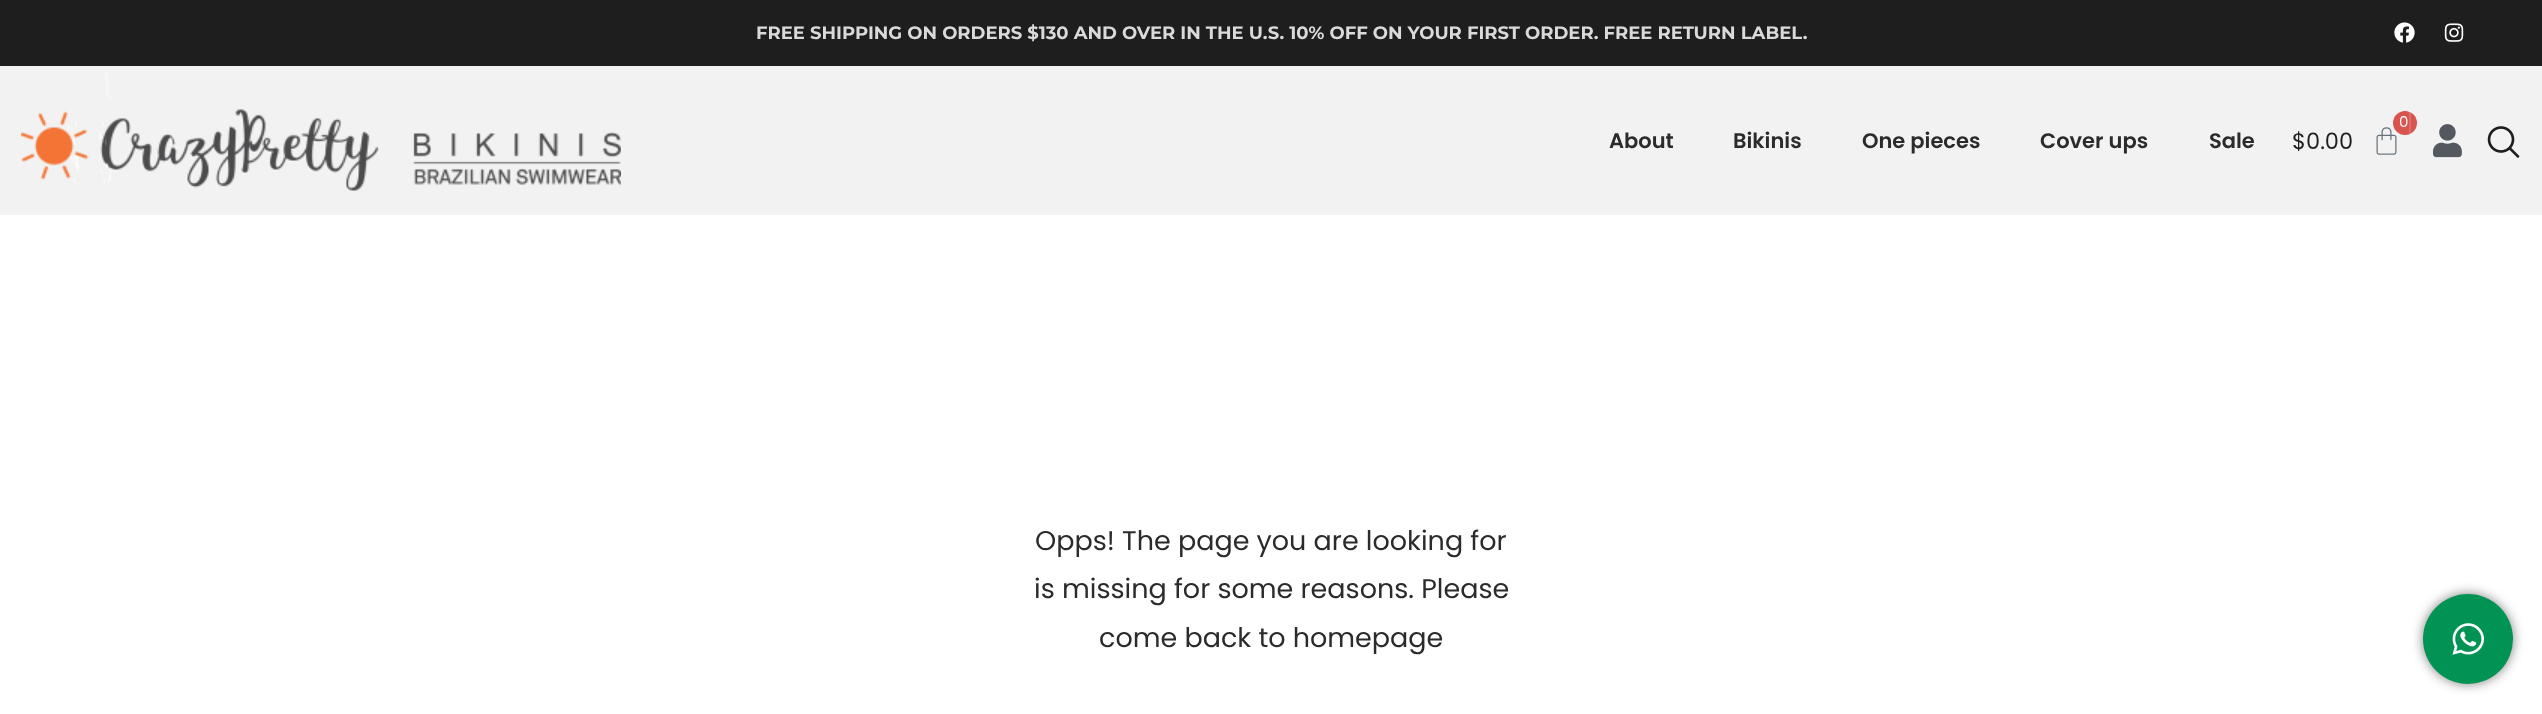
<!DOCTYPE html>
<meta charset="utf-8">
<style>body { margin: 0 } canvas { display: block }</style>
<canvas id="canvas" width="2542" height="714"></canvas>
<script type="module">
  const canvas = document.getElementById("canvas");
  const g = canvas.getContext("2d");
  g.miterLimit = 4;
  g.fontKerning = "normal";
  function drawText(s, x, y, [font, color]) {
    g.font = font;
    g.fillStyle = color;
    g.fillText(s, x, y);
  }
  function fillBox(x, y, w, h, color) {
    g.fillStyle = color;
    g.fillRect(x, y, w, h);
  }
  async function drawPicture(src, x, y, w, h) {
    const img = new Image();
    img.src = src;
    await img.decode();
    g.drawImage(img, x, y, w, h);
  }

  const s1 = ["bold 18px Montserrat", "#DADADA"];
  const s2 = ["600 21px Poppins", "#2B2B2B"];
  const s3 = ["15px Poppins", "#FFFFFF"];
  const s4 = ["22.5px Poppins", "#1E1E1E"];
  const s5 = ["27px Poppins", "#2B2B2B"];

  fillBox(0, 0, 2542, 714, "#FFFFFF");
  fillBox(0, 0, 2542, 66, "#1E1E1E");
  drawText("FREE SHIPPING ON ORDERS $130 AND OVER IN THE U.S. 10% OFF ON YOUR FIRST ORDER. FREE RETURN LABEL.", 756, 39, s1);
  await drawPicture("pic1.png", 2394, 22, 21, 21);
  await drawPicture("pic2.png", 2444, 23, 20, 19);
  fillBox(0, 66, 2542, 149, "#F2F2F2");
  await drawPicture("pic3.png", 21, 72, 600, 120);
  drawText("About", 1609, 148, s2);
  drawText("Bikinis", 1733, 148, s2);
  drawText("One pieces", 1862, 148, s2);
  drawText("Cover ups", 2040, 148, s2);
  drawText("Sale", 2209, 148, s2);
  await drawPicture("pic4.png", 2376, 127, 21, 28);
  g.fillStyle = "#D9534F";
  g.beginPath();
  g.arc(2405, 123, 12, 0, Math.PI * 2);
  g.fill();
  drawText("0", 2399, 127, s3);
  drawText("$0.00", 2292, 149, s4);
  fillBox(2409, 110, 2, 25, "rgba(255, 255, 255, 0.15)");
  await drawPicture("pic5.png", 2433, 124, 29, 34);
  await drawPicture("pic6.png", 2487, 126, 33, 32);
  drawText("Opps! The page you are looking for", 1035, 550, s5);
  drawText("is missing for some reasons. Please", 1034, 598, s5);
  drawText("come back to homepage", 1099, 647, s5);
  g.fillStyle = "rgba(0, 0, 0, 0.5)";
  g.filter = "blur(6px)";
  g.beginPath();
  g.roundRect(2423, 594, 90, 90, 45);
  g.fill();
  g.filter = "none";
  g.fillStyle = "#009353";
  g.beginPath();
  g.arc(2468, 639, 45, 0, Math.PI * 2);
  g.fill();
  await drawPicture("pic7.png", 2452, 623, 32, 32);
</script>
